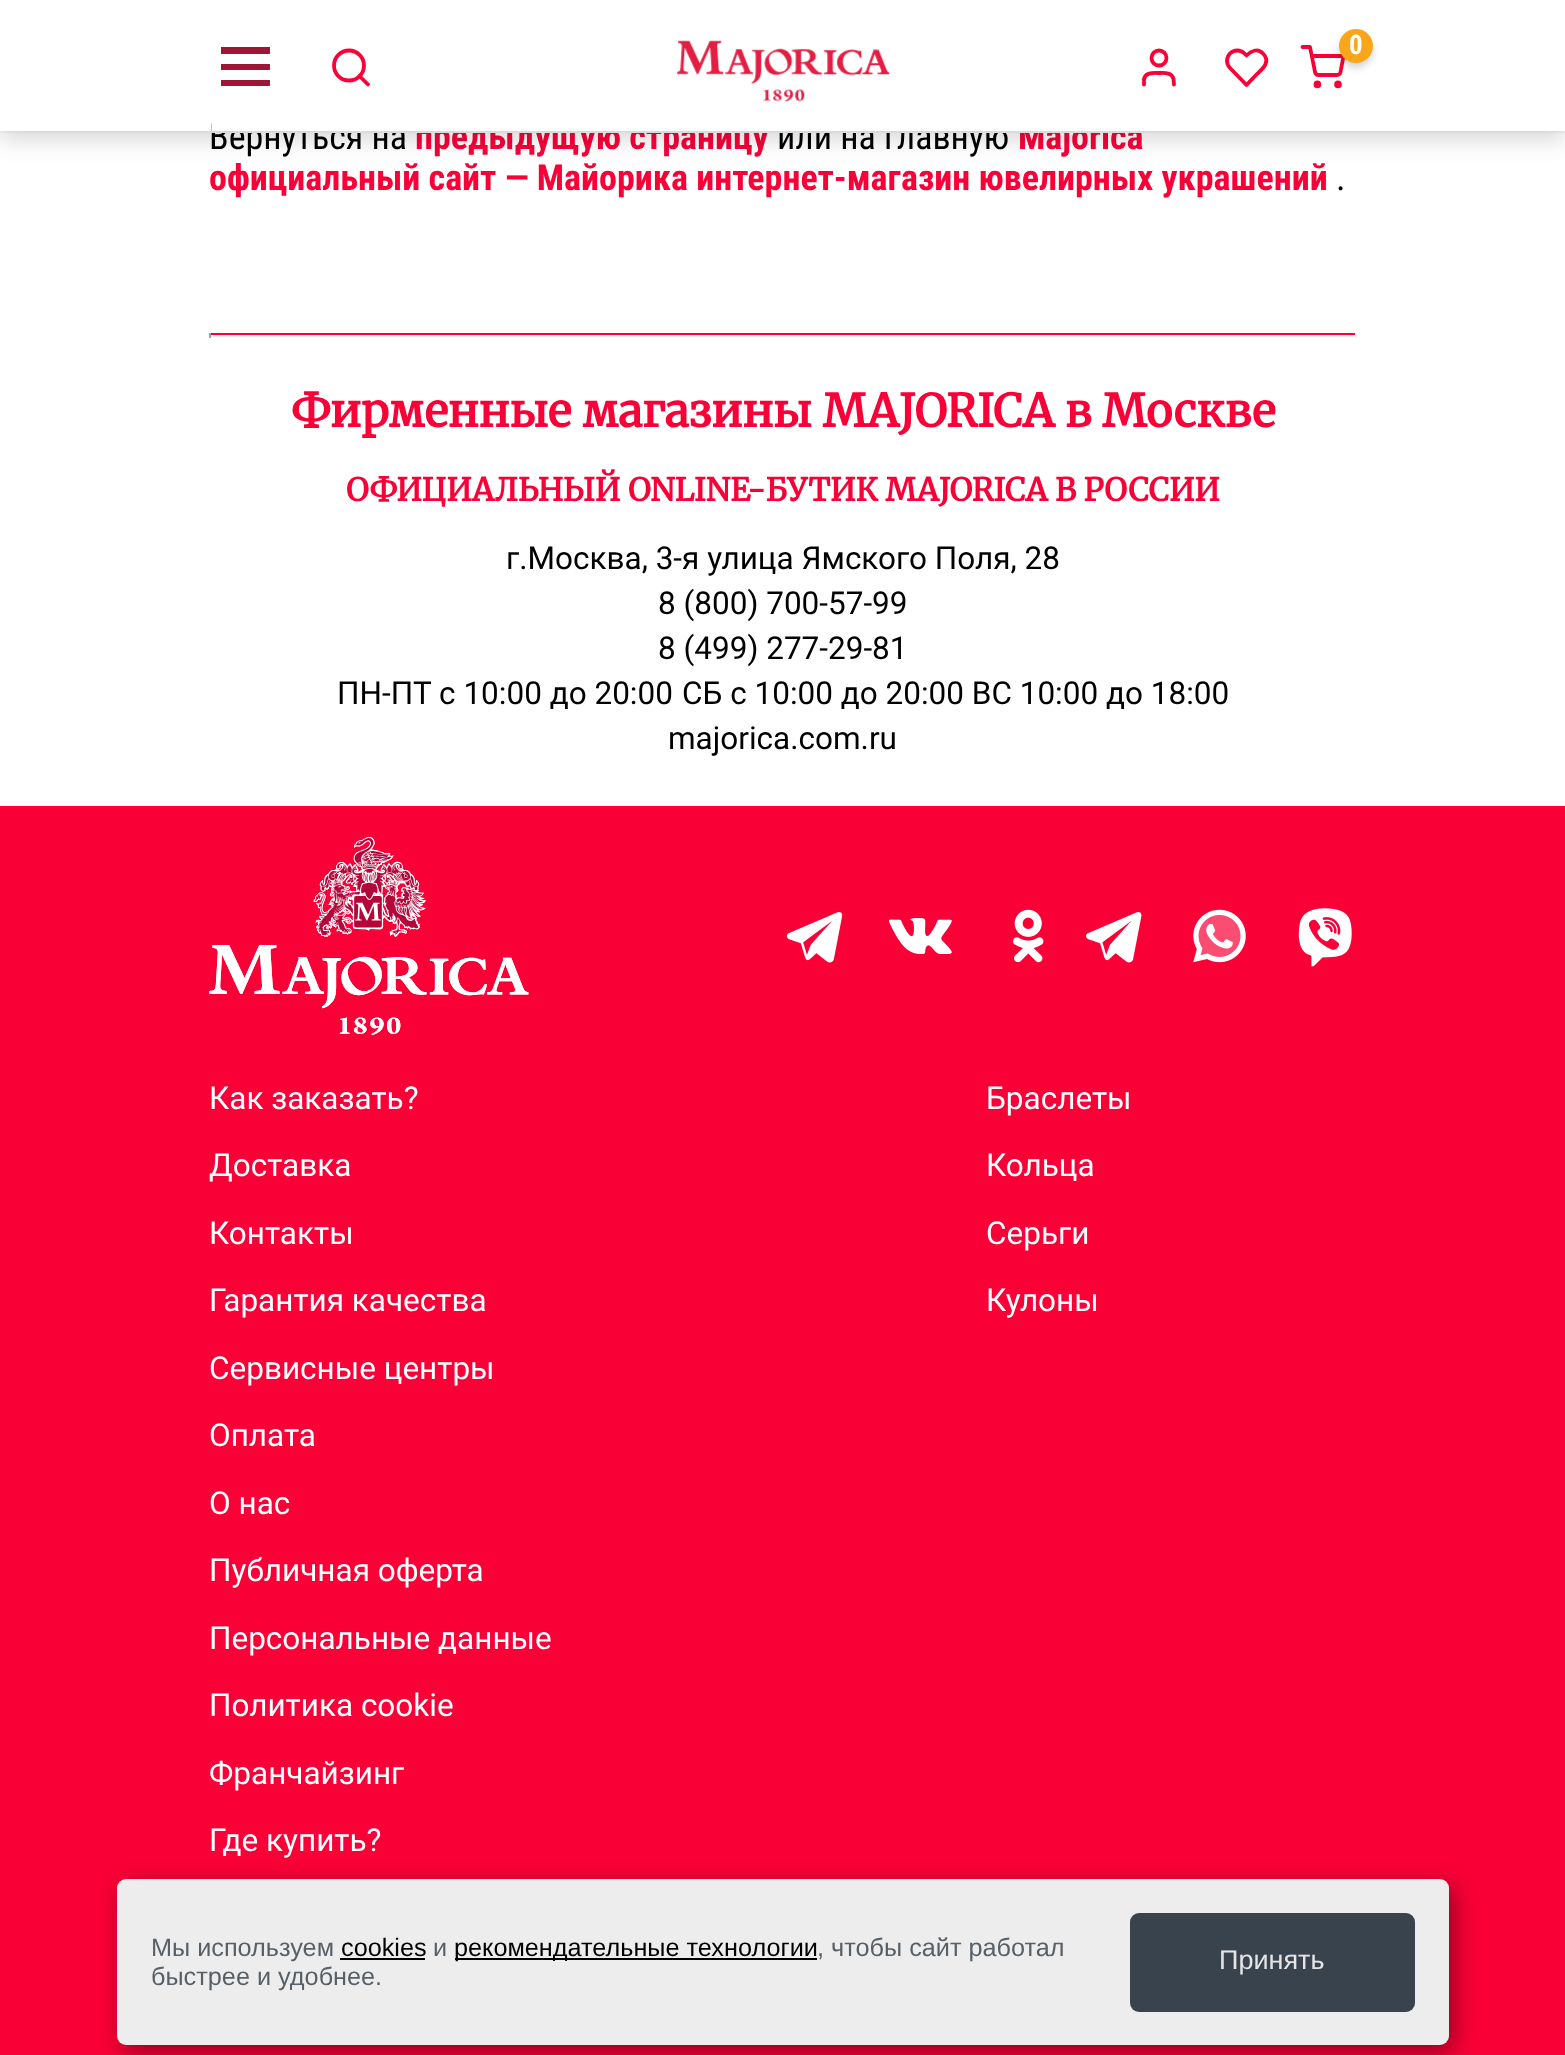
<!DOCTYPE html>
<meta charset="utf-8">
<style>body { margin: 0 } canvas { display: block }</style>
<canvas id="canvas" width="1565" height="2055"></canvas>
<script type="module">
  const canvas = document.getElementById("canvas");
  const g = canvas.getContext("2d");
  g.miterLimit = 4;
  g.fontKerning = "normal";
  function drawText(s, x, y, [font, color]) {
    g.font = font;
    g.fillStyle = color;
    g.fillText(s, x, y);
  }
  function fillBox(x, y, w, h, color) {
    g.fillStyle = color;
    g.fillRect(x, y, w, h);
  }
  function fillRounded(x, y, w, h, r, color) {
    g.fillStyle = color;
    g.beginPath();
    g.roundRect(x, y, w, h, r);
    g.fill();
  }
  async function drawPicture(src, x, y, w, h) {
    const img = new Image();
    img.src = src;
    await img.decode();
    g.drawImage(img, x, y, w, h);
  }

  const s1 = ["36px Roboto Condensed", "#000000"];
  const s2 = ["bold 36px Roboto Condensed", "#F90037"];
  const s3 = ["bold 27px Roboto Condensed", "#FFFFFF"];
  const s4 = ["bold 45px Merriweather", "#F90037"];
  const s5 = ["bold 31.5px Merriweather", "#F90037"];
  const s6 = ["31.5px Roboto", "#000000"];
  const s7 = ["31.5px Roboto", "#FFFFFF"];
  const s8 = ["25.25px Liberation Sans", "#575F67"];
  const s9 = ["25.25px Liberation Sans", "#000000"];
  const s10 = ["27px Liberation Sans", "#E5E5E5"];

  fillBox(0, 0, 1565, 2055, "#FFFFFF");
  drawText("Вернуться на", 209, 149, s1);
  drawText("предыдущую страницу", 415, 149, s2);
  drawText("или на главную", 777, 149, s1);
  drawText("Majorica", 1018, 149, s2);
  fillBox(212, 122, 928, 9, "#FFFFFF");
  fillBox(0, 131, 1565, 2, "#F7F7F7");
  g.save();
  g.beginPath();
  g.moveTo(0, 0);
  g.lineTo(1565, 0);
  g.lineTo(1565, 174);
  g.lineTo(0, 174);
  g.closePath();
  g.moveTo(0, 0);
  g.lineTo(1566, 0);
  g.lineTo(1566, 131);
  g.lineTo(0, 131);
  g.closePath();
  g.clip("evenodd");
  g.fillStyle = "rgba(0, 0, 0, 0.15)";
  g.filter = "blur(11px)";
  g.beginPath();
  g.rect(0, 9, 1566, 131);
  g.fill();
  g.filter = "none";
  g.restore();
  g.beginPath();
  g.arc(349, 65.5, 15, 0, Math.PI * 2);
  g.strokeStyle = "#F90037";
  g.lineWidth = 3.8;
  g.stroke();
  g.beginPath();
  g.moveTo(368, 84.5);
  g.lineTo(359.5, 76);
  g.lineCap = "round";
  g.lineJoin = "round";
  g.stroke();
  await drawPicture("pic1.png", 677, 40, 213, 62);
  g.beginPath();
  g.arc(1317.4, 84.4, 1.9, 0, Math.PI * 2);
  g.stroke();
  g.beginPath();
  g.arc(1338, 84.4, 1.9, 0, Math.PI * 2);
  g.stroke();
  g.beginPath();
  g.moveTo(1302.5, 47);
  g.lineTo(1310, 47);
  g.lineTo(1315, 72);
  g.bezierCurveTo(1315.5, 74, 1317, 75, 1318.5, 75);
  g.lineTo(1337, 75);
  g.bezierCurveTo(1338.5, 75, 1340.5, 74, 1340.5, 72);
  g.lineTo(1343.5, 56);
  g.lineTo(1312, 56);
  g.stroke();
  g.fillStyle = "rgba(0, 0, 0, 0.16)";
  g.filter = "blur(3.5px)";
  g.beginPath();
  g.roundRect(1339, 34, 34, 34, 17);
  g.fill();
  g.filter = "none";
  g.fillStyle = "#FAA61A";
  g.beginPath();
  g.arc(1356, 46, 17, 0, Math.PI * 2);
  g.fill();
  drawText("0", 1349, 54, s3);
  g.beginPath();
  g.moveTo(1174, 84.5);
  g.lineTo(1173.5, 79);
  g.bezierCurveTo(1172, 72, 1164, 73, 1159, 73);
  g.bezierCurveTo(1153.5, 73, 1145.5, 72, 1144, 79);
  g.lineTo(1144, 84.5);
  g.stroke();
  g.beginPath();
  g.arc(1159, 58, 7.5, 0, Math.PI * 2);
  g.stroke();
  g.beginPath();
  g.moveTo(1263, 53.5);
  g.bezierCurveTo(1257.5, 48, 1251, 51, 1246.5, 55.5);
  g.lineTo(1244.5, 53.5);
  g.bezierCurveTo(1240.5, 49.5, 1234, 49.5, 1230, 53.5);
  g.bezierCurveTo(1226, 57.5, 1226, 64, 1230, 68);
  g.lineTo(1246.5, 85);
  g.lineTo(1256, 75);
  g.bezierCurveTo(1262, 69.5, 1271.5, 62, 1263, 53.5);
  g.closePath();
  g.stroke();
  g.save();
  g.beginPath();
  g.rect(221, 47, 49, 39);
  g.clip();
  g.fillStyle = "#9D1635";
  g.beginPath();
  g.moveTo(270, 64);
  g.lineTo(221, 64);
  g.lineTo(221, 70);
  g.lineTo(270, 70);
  g.closePath();
  g.moveTo(270, 47);
  g.lineTo(221, 47);
  g.lineTo(221, 54);
  g.lineTo(270, 54);
  g.closePath();
  g.moveTo(270, 80);
  g.lineTo(221, 80);
  g.lineTo(221, 87);
  g.lineTo(270, 87);
  g.closePath();
  g.fill();
  g.restore();
  drawText("официальный сайт — Майорика интернет-магазин ювелирных украшений", 209, 190, s2);
  drawText(".", 1336, 190, s1);
  fillBox(209, 333, 1148, 2, "#F90037");
  fillBox(1355, 333, 2, 5, "#EEEEEE");
  fillBox(209, 335, 1148, 2, "#EEEEEE");
  fillBox(209, 333, 2, 5, "#9F9F9F");
  drawText("Фирменные магазины MAJORICA в Москве", 291, 427, s4);
  drawText("ОФИЦИАЛЬНЫЙ ONLINE-БУТИК MAJORICA В РОССИИ", 346, 501, s5);
  drawText("г.Москва, 3-я улица Ямского Поля, 28", 506, 569, s6);
  drawText("8 (800) 700-57-99", 658, 614, s6);
  drawText("8 (499) 277-29-81", 658, 659, s6);
  drawText("ПН-ПТ с 10:00 до 20:00", 337, 704, s6);
  drawText("СБ с 10:00 до 20:00 ВС 10:00 до 18:00", 682, 704, s6);
  drawText("majorica.com.ru", 668, 749, s6);
  fillBox(0, 806, 1565, 1249, "#F90037");
  await drawPicture("pic2.png", 209, 837, 320, 198);
  await drawPicture("pic3.png", 209, 837, 320, 198);
  await drawPicture("pic4.png", 786, 912, 57, 51);
  await drawPicture("pic5.png", 889, 918, 63, 36);
  await drawPicture("pic6.png", 1013, 909, 31, 54);
  await drawPicture("pic7.png", 1086, 912, 56, 51);
  await drawPicture("pic8.png", 1193, 909, 53, 54);
  await drawPicture("pic9.png", 1298, 908, 54, 59);
  drawText("Как заказать?", 209, 1109, s7);
  drawText("Доставка", 209, 1176, s7);
  drawText("Контакты", 209, 1244, s7);
  drawText("Гарантия качества", 209, 1311, s7);
  drawText("Сервисные центры", 209, 1379, s7);
  drawText("Оплата", 209, 1446, s7);
  drawText("О нас", 209, 1514, s7);
  drawText("Публичная оферта", 209, 1581, s7);
  drawText("Персональные данные", 209, 1649, s7);
  drawText("Политика cookie", 209, 1716, s7);
  drawText("Франчайзинг", 209, 1784, s7);
  drawText("Где купить?", 209, 1851, s7);
  drawText("Браслеты", 986, 1109, s7);
  drawText("Кольца", 986, 1176, s7);
  drawText("Серьги", 986, 1244, s7);
  drawText("Кулоны", 986, 1311, s7);
  g.fillStyle = "rgba(0, 0, 0, 0.4)";
  g.filter = "blur(11px)";
  g.beginPath();
  g.roundRect(122, 1886, 1332, 166, 9);
  g.fill();
  g.filter = "none";
  fillRounded(117, 1879, 1332, 166, 9, "#EDEDED");
  drawText("Мы используем", 151, 1956, s8);
  drawText("cookies", 341, 1956, s9);
  fillBox(340, 1958, 85, 2, "#000000");
  drawText("и", 433, 1956, s8);
  fillBox(455, 1958, 362, 2, "#000000");
  drawText("рекомендательные технологии", 454, 1956, s9);
  drawText(", чтобы сайт работал", 817, 1956, s8);
  drawText("быстрее и удобнее.", 151, 1985, s8);
  fillRounded(1130, 1913, 285, 99, 9, "#39434E");
  drawText("Принять", 1219, 1969, s10);
</script>
